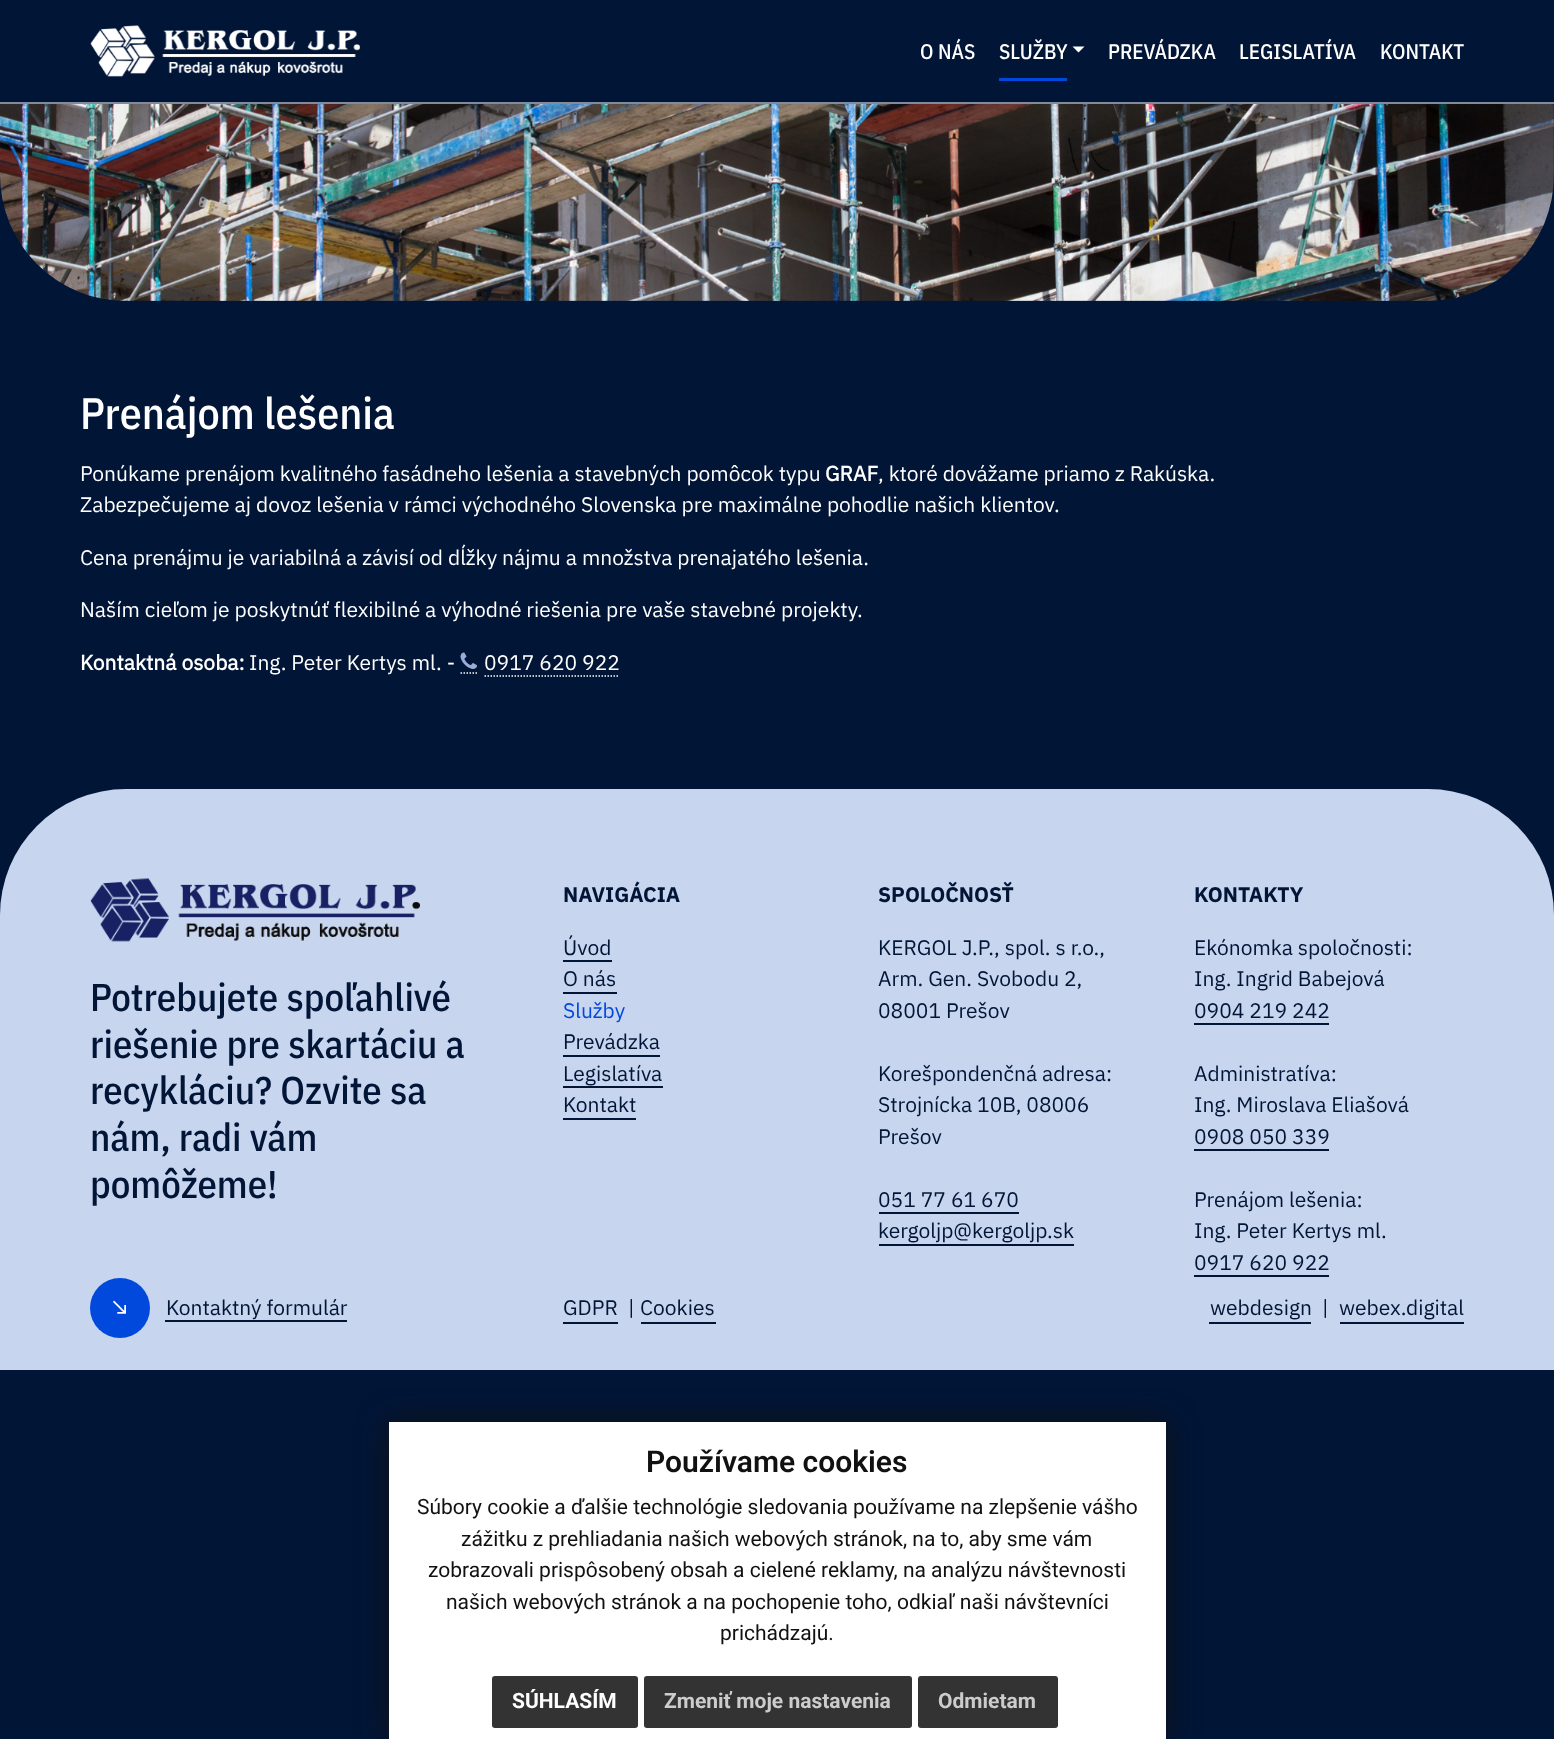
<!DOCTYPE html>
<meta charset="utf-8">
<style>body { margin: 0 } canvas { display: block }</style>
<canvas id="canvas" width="1554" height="1739"></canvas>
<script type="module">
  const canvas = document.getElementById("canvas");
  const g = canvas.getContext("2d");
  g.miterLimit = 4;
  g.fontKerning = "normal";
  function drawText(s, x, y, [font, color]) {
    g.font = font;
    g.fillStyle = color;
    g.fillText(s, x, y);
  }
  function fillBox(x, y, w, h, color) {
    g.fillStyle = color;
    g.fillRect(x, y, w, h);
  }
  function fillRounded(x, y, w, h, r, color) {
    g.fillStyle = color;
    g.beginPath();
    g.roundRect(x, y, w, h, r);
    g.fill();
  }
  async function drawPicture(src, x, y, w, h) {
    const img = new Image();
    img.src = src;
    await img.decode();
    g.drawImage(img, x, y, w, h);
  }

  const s1 = ["500 21px IBM Plex Sans Condensed", "#FFFFFF"];
  const s2 = ["500 44px IBM Plex Sans Condensed", "#FFFFFF"];
  const s3 = ["21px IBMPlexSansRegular", "#FFFFFF"];
  const s4 = ["bold 21px IBMPlexSansRegular", "#FFFFFF"];
  const s5 = ["500 38.75px IBM Plex Sans Condensed", "#011537"];
  const s6 = ["bold 21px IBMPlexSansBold", "#011537"];
  const s7 = ["21px IBMPlexSansRegular", "#011537"];
  const s8 = ["21px IBMPlexSansRegular", "#0148DD"];
  const s9 = ["600 30px Roboto", "#111111"];
  const s10 = ["21px Roboto", "#111111"];
  const s11 = ["bold 21px Roboto", "#FFFFFF"];
  const s12 = ["bold 21px Roboto", "#CCCCCC"];

  fillBox(0, 0, 1554, 1739, "#011537");
  fillBox(0, 102, 1554, 2, "#808A9B");
  await drawPicture("pic1.png", 90, 25, 270, 52);
  drawText("O NÁS", 920, 59, s1);
  drawText("SLUŽBY", 999, 59, s1);
  fillBox(999, 78, 68, 3, "#0148DD");
  g.fillStyle = "#FFFFFF";
  g.beginPath();
  g.moveTo(1072.5, 46.5);
  g.lineTo(1084.5, 46.5);
  g.lineTo(1078.5, 52.5);
  g.closePath();
  g.fill();
  drawText("PREVÁDZKA", 1108, 59, s1);
  drawText("LEGISLATÍVA", 1239, 59, s1);
  drawText("KONTAKT", 1380, 59, s1);
  await drawPicture("pic2.png", 0, 104, 1554, 197);
  drawText("Prenájom lešenia", 80, 429, s2);
  drawText("Ponúkame prenájom kvalitného fasádneho lešenia a stavebných pomôcok typu", 80, 481, s3);
  drawText("GRAF", 825, 481, s4);
  drawText(", ktoré dovážame priamo z Rakúska.", 878, 481, s3);
  drawText("Zabezpečujeme aj dovoz lešenia v rámci východného Slovenska pre maximálne pohodlie našich klientov.", 80, 512, s3);
  drawText("Cena prenájmu je variabilná a závisí od dĺžky nájmu a množstva prenajatého lešenia.", 80, 565, s3);
  drawText("Naším cieľom je poskytnúť flexibilné a výhodné riešenia pre vaše stavebné projekty.", 80, 617, s3);
  drawText("Kontaktná osoba:", 80, 670, s4);
  drawText("Ing. Peter Kertys ml. -", 249, 670, s3);
  await drawPicture("pic3.png", 460, 652, 17, 17);
  drawText("0917 620 922", 484, 670, s3);
  g.beginPath();
  g.moveTo(460.5, 673);
  g.lineTo(477, 673);
  g.strokeStyle = "#FFFFFF";
  g.lineWidth = 1.5;
  g.setLineDash([1.5, 1.5]);
  g.stroke();
  g.beginPath();
  g.moveTo(484.5, 676);
  g.lineTo(619.5, 676);
  g.stroke();
  g.fillStyle = "#C8D5EF";
  g.beginPath();
  g.roundRect(0, 789, 1554, 581, [126, 126, 0, 0]);
  g.fill();
  await drawPicture("pic4.png", 90, 878, 330, 64);
  drawText("Potrebujete spoľahlivé", 90, 1011, s5);
  drawText("riešenie pre skartáciu a", 90, 1058, s5);
  drawText("recykláciu? Ozvite sa", 90, 1104, s5);
  drawText("nám, radi vám", 90, 1151, s5);
  drawText("pomôžeme!", 90, 1198, s5);
  drawText("NAVIGÁCIA", 563, 902, s6);
  drawText("Úvod", 563, 955, s7);
  fillBox(563, 960, 49, 2, "#011537");
  drawText("O nás", 563, 986, s7);
  fillBox(563, 992, 54, 2, "#011537");
  drawText("Služby", 563, 1018, s8);
  drawText("Prevádzka", 563, 1049, s7);
  fillBox(563, 1055, 97, 2, "#011537");
  drawText("Legislatíva", 563, 1081, s7);
  fillBox(563, 1086, 100, 2, "#011537");
  drawText("Kontakt", 563, 1112, s7);
  fillBox(563, 1118, 73, 2, "#011537");
  drawText("SPOLOČNOSŤ", 878, 902, s6);
  drawText("KERGOL J.P., spol. s r.o.,", 878, 955, s7);
  drawText("Arm. Gen. Svobodu 2,", 878, 986, s7);
  drawText("08001 Prešov", 878, 1018, s7);
  drawText("Korešpondenčná adresa:", 878, 1081, s7);
  drawText("Strojnícka 10B, 08006", 878, 1112, s7);
  drawText("Prešov", 878, 1144, s7);
  drawText("051 77 61 670", 878, 1207, s7);
  fillBox(879, 1212, 140, 2, "#011537");
  drawText("kergoljp@kergoljp.sk", 878, 1238, s7);
  fillBox(879, 1244, 195, 2, "#011537");
  drawText("KONTAKTY", 1194, 902, s6);
  drawText("Ekónomka spoločnosti:", 1194, 955, s7);
  drawText("Ing. Ingrid Babejová", 1194, 986, s7);
  drawText("0904 219 242", 1194, 1018, s7);
  fillBox(1194, 1023, 135, 2, "#011537");
  drawText("Administratíva:", 1194, 1081, s7);
  drawText("Ing. Miroslava Eliašová", 1194, 1112, s7);
  drawText("0908 050 339", 1194, 1144, s7);
  fillBox(1194, 1149, 135, 2, "#011537");
  drawText("Prenájom lešenia:", 1194, 1207, s7);
  drawText("Ing. Peter Kertys ml.", 1194, 1238, s7);
  drawText("0917 620 922", 1194, 1270, s7);
  fillBox(1194, 1275, 135, 2, "#011537");
  g.fillStyle = "#0148DD";
  g.beginPath();
  g.arc(120, 1308, 30, 0, Math.PI * 2);
  g.fill();
  await drawPicture("pic5.png", 113, 1300, 13, 14);
  drawText("Kontaktný formulár", 166, 1315, s7);
  fillBox(165, 1320, 182, 2, "#011537");
  drawText("GDPR", 563, 1315, s7);
  fillBox(563, 1322, 55, 2, "#011537");
  drawText("|", 628, 1315, s7);
  drawText("Cookies", 640, 1315, s7);
  fillBox(641, 1322, 75, 2, "#011537");
  drawText("webdesign", 1210, 1315, s7);
  fillBox(1209, 1322, 102, 2, "#011537");
  drawText("|", 1322, 1315, s7);
  drawText("webex.digital", 1339, 1315, s7);
  fillBox(1340, 1322, 124, 2, "#011537");
  g.fillStyle = "#111111";
  g.filter = "blur(15px)";
  g.beginPath();
  g.rect(389, 1422, 777, 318);
  g.fill();
  g.filter = "none";
  fillBox(389, 1422, 777, 317, "#FFFFFF");
  drawText("Používame cookies", 646, 1472, s9);
  drawText("Súbory cookie a ďalšie technológie sledovania používame na zlepšenie vášho", 417, 1514, s10);
  drawText("zážitku z prehliadania našich webových stránok, na to, aby sme vám", 461, 1546, s10);
  drawText("zobrazovali prispôsobený obsah a cielené reklamy, na analýzu návštevnosti", 428, 1577, s10);
  drawText("našich webových stránok a na pochopenie toho, odkiaľ naši návštevníci", 446, 1609, s10);
  drawText("prichádzajú.", 720, 1640, s10);
  fillRounded(492, 1676, 146, 52, 3, "#333333");
  drawText("SÚHLASÍM", 512, 1708, s11);
  fillRounded(644, 1676, 268, 52, 3, "#333333");
  drawText("Zmeniť moje nastavenia", 664, 1708, s12);
  fillRounded(918, 1676, 140, 52, 3, "#333333");
  drawText("Odmietam", 938, 1708, s12);
</script>
